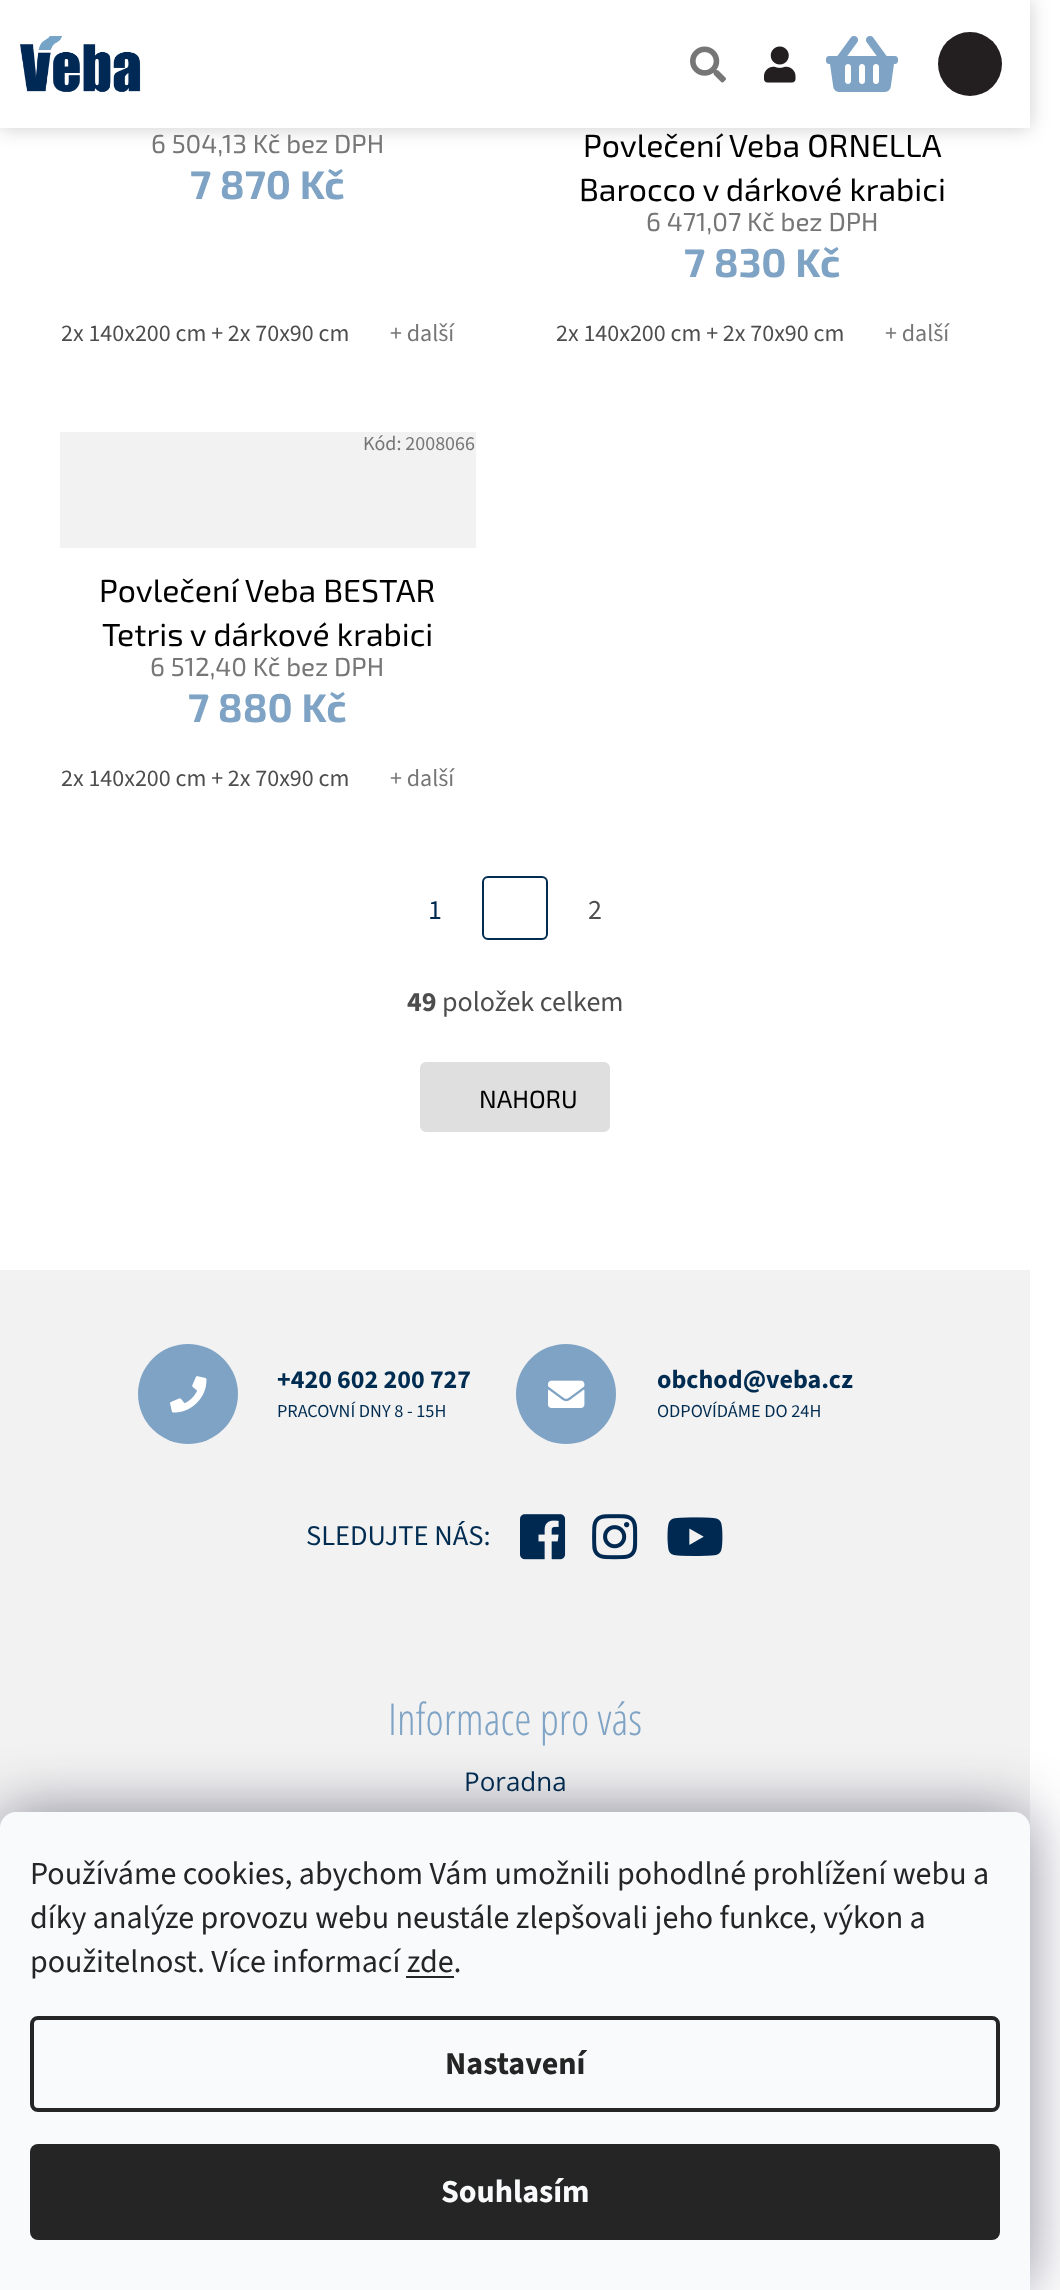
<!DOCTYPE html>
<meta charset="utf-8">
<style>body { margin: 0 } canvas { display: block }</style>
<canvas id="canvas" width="1060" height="2290"></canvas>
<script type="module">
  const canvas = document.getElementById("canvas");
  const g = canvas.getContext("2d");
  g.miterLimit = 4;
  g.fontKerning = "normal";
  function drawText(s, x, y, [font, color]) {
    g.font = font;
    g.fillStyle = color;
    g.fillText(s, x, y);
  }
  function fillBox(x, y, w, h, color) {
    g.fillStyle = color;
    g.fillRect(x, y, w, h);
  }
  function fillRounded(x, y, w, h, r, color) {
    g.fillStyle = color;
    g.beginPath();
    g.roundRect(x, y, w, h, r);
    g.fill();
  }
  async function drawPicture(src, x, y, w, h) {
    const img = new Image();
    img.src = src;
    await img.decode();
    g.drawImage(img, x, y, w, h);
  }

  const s1 = ["26px 'Exo 2'", "#767676"];
  const s2 = ["bold 40px 'Exo 2'", "#7FA3C5"];
  const s3 = ["24px 'Source Sans 3'", "#4D4D4D"];
  const s4 = ["24px 'Source Sans 3'", "#767676"];
  const s5 = ["32px 'Exo 2'", "#000000"];
  const s6 = ["20px 'Source Sans 3'", "#767676"];
  const s7 = ["28px 'Source Sans 3'", "#002C51"];
  const s8 = ["28px 'Source Sans 3'", "#4D4D4D"];
  const s9 = ["bold 28px 'Source Sans 3'", "#4D4D4D"];
  const s10 = ["25px 'Exo 2'", "#000000"];
  const s11 = ["bold 26px 'Source Sans 3'", "#002C51"];
  const s12 = ["18.25px 'Source Sans 3'", "#002C51"];
  const s13 = ["28.5px 'Source Sans 3'", "#002C51"];
  const s14 = ["300 44px Open Sans Condensed", "#7FA3C5"];
  const s15 = ["26px Open Sans", "#002C51"];
  const s16 = ["32px 'Source Sans 3'", "#252525"];
  const s17 = ["bold 32px 'Source Sans 3'", "#252525"];
  const s18 = ["bold 32px 'Source Sans 3'", "#F8FAFB"];

  fillBox(0, 0, 1060, 2290, "#FFFFFF");
  g.fillStyle = "rgba(0, 0, 0, 0.2)";
  g.filter = "blur(10px)";
  g.beginPath();
  g.rect(0, 0, 1030, 128);
  g.fill();
  g.filter = "none";
  fillBox(0, 0, 1030, 128, "#FFFFFF");
  await drawPicture("pic1.png", 690, 46, 36, 37);
  await drawPicture("pic2.png", 764, 46, 32, 37);
  g.fillStyle = "#231F20";
  g.beginPath();
  g.arc(970, 64, 32, 0, Math.PI * 2);
  g.fill();
  await drawPicture("pic3.png", 20, 36, 121, 56);
  await drawPicture("pic4.png", 826, 36, 72, 56);
  drawText("6 504,13 Kč bez DPH", 151, 153, s1);
  drawText("7 870 Kč", 190, 199, s2);
  drawText("2x 140x200 cm + 2x 70x90 cm", 61, 341, s3);
  drawText("+ další", 390, 341, s4);
  drawText("Povlečení Veba ORNELLA", 583, 157, s5);
  drawText("Barocco v dárkové krabici", 579, 201, s5);
  drawText("6 471,07 Kč bez DPH", 646, 231, s1);
  drawText("7 830 Kč", 684, 277, s2);
  drawText("2x 140x200 cm + 2x 70x90 cm", 556, 341, s3);
  drawText("+ další", 885, 341, s4);
  fillBox(60, 432, 416, 116, "#F2F2F2");
  drawText("Kód: 2008066", 363, 450, s6);
  drawText("Povlečení Veba BESTAR", 99, 602, s5);
  drawText("Tetris v dárkové krabici", 102, 646, s5);
  drawText("6 512,40 Kč bez DPH", 150, 676, s1);
  drawText("7 880 Kč", 188, 722, s2);
  drawText("2x 140x200 cm + 2x 70x90 cm", 61, 786, s3);
  drawText("+ další", 390, 786, s4);
  drawText("1", 428, 919, s7);
  g.beginPath();
  g.roundRect(483, 877, 64, 62, 5);
  g.strokeStyle = "#002C51";
  g.lineWidth = 2;
  g.stroke();
  drawText("2", 588, 919, s8);
  drawText("49", 407, 1011, s9);
  drawText("položek celkem", 442, 1011, s8);
  g.fillStyle = "#DFDFDF";
  g.beginPath();
  g.roundRect(421, 1063, 188, 68, 5);
  g.fill();
  g.strokeStyle = "#DFDFDF";
  g.stroke();
  drawText("NAHORU", 479, 1108, s10);
  fillBox(0, 1270, 1030, 558, "#F2F2F2");
  g.fillStyle = "#7FA3C5";
  g.beginPath();
  g.arc(188, 1394, 50, 0, Math.PI * 2);
  g.fill();
  await drawPicture("pic5.png", 170, 1376, 37, 37);
  drawText("+420 602 200 727", 277, 1388, s11);
  drawText("PRACOVNÍ DNY 8 - 15H", 277, 1417, s12);
  g.fillStyle = "#7FA3C5";
  g.beginPath();
  g.arc(566, 1394, 50, 0, Math.PI * 2);
  g.fill();
  await drawPicture("pic6.png", 548, 1380, 37, 28);
  drawText("obchod@veba.cz", 657, 1388, s11);
  drawText("ODPOVÍDÁME DO 24H", 657, 1417, s12);
  drawText("SLEDUJTE NÁS:", 306, 1545, s13);
  await drawPicture("pic7.png", 520, 1514, 46, 46);
  await drawPicture("pic8.png", 592, 1514, 46, 46);
  await drawPicture("pic9.png", 667, 1517, 56, 39);
  drawText("Informace pro vás", 388, 1735, s14);
  drawText("Poradna", 464, 1791, s15);
  g.fillStyle = "rgba(27, 25, 57, 0.5)";
  g.filter = "blur(30px)";
  g.beginPath();
  g.roundRect(0, 1812, 1030, 478, 16);
  g.fill();
  g.filter = "none";
  g.fillStyle = "#F8FAFB";
  g.beginPath();
  g.roundRect(0, 1812, 1030, 478, [16, 16, 0, 0]);
  g.fill();
  drawText("Používáme cookies, abychom Vám umožnili pohodlné prohlížení webu a", 30, 1884, s16);
  drawText("díky analýze provozu webu neustále zlepšovali jeho funkce, výkon a", 30, 1928, s16);
  drawText("použitelnost. Více informací zde.", 30, 1972, s16);
  fillBox(406, 1976, 48, 2, "#252525");
  g.beginPath();
  g.roundRect(32, 2018, 966, 92, 6);
  g.strokeStyle = "#252525";
  g.lineWidth = 4;
  g.stroke();
  drawText("Nastavení", 445, 2074, s17);
  fillRounded(30, 2144, 970, 96, 8, "#252525");
  drawText("Souhlasím", 441, 2202, s18);
</script>
